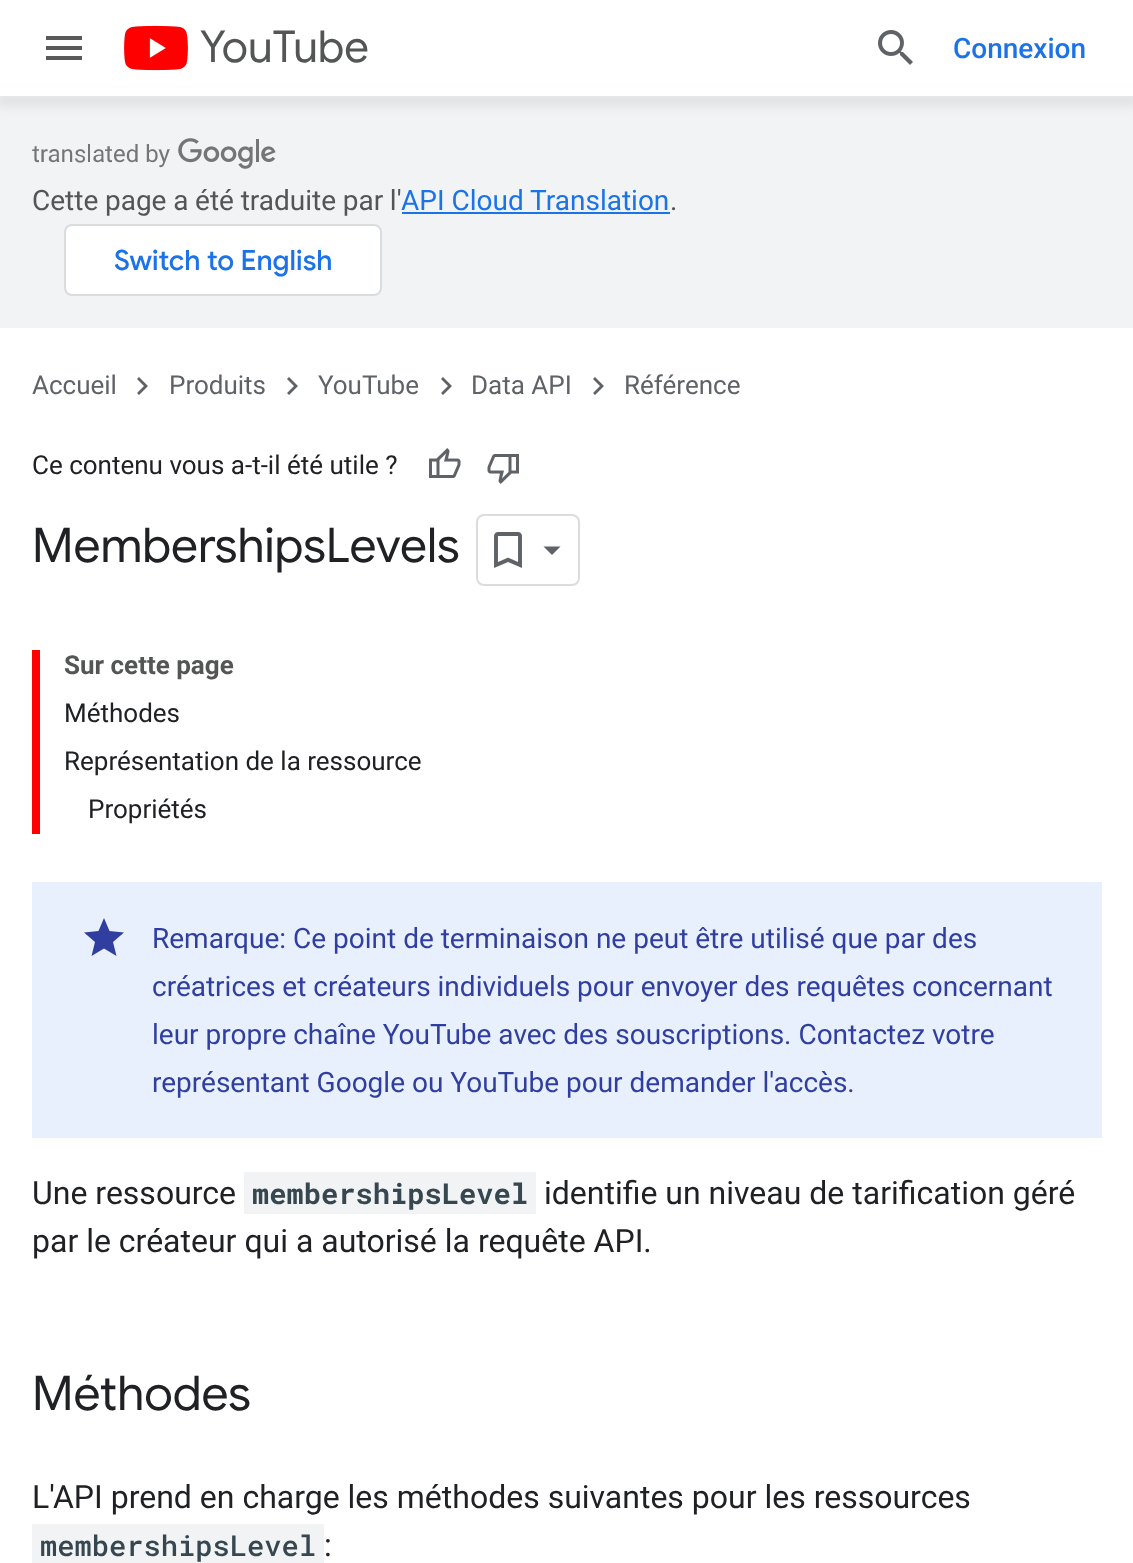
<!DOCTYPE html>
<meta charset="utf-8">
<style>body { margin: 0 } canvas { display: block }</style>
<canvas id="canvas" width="1133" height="1563"></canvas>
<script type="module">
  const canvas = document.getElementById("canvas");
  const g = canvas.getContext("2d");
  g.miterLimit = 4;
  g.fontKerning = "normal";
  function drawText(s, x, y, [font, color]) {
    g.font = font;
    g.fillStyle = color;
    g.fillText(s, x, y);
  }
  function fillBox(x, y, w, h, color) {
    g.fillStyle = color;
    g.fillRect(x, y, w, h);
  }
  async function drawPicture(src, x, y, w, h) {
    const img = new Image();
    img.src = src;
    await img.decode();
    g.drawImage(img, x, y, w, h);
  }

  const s1 = ["44px Google Sans", "#545555"];
  const s2 = ["500 28px Roboto", "#1A73E8"];
  const s3 = ["28px Roboto", "#545555"];
  const s4 = ["28px Roboto", "#1A73E8"];
  const s5 = ["500 28px Google Sans", "#1A73E8"];
  const s6 = ["26px Roboto", "#5F6368"];
  const s7 = ["26px Roboto", "#202124"];
  const s8 = ["48px Google Sans", "#202124"];
  const s9 = ["bold 26px Roboto", "#545555"];
  const s10 = ["28px Roboto", "#303F9F"];
  const s11 = ["32px Roboto", "#202124"];
  const s12 = ["bold 28.75px Roboto Mono", "#37474F"];
  const s13 = ["500 28.75px Roboto Mono", "#37474F"];

  fillBox(0, 0, 1133, 1563, "#FFFFFF");
  fillBox(0, 96, 1133, 232, "#F1F3F4");
  g.fillStyle = "rgba(60, 64, 67, 0.15)";
  g.filter = "blur(6px)";
  g.beginPath();
  g.rect(-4, 96, 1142, 8);
  g.fill();
  g.filter = "none";
  fillBox(0, 88, 1133, 8, "#FFFFFF");
  g.fillStyle = "#595959";
  g.beginPath();
  g.moveTo(46, 36);
  g.lineTo(82, 36);
  g.lineTo(82, 40);
  g.lineTo(46, 40);
  g.closePath();
  g.moveTo(46, 50);
  g.lineTo(46, 46);
  g.lineTo(82, 46);
  g.lineTo(82, 50);
  g.closePath();
  g.moveTo(46, 60);
  g.lineTo(46, 56);
  g.lineTo(82, 56);
  g.lineTo(82, 60);
  g.closePath();
  g.fill();
  await drawPicture("pic1.png", 124, 25, 64, 46);
  drawText("YouTube", 200, 62, s1);
  await drawPicture("pic2.png", 878, 30, 35, 35);
  drawText("Connexion", 953, 58, s2);
  await drawPicture("pic3.png", 32, 138, 244, 31);
  g.wordSpacing = "-0.25px";
  drawText("Cette page a été traduite par l'", 32, 210, s3);
  g.wordSpacing = "0px";
  drawText("API Cloud Translation", 401, 210, s4);
  fillBox(402, 212, 268, 2, "#1A73E8");
  drawText(".", 670, 210, s3);
  g.fillStyle = "#FFFFFF";
  g.beginPath();
  g.roundRect(65, 225, 316, 70, 7);
  g.fill();
  g.strokeStyle = "#DADCE0";
  g.lineWidth = 2;
  g.stroke();
  drawText("Switch to English", 114, 270, s5);
  drawText("Accueil", 32, 394, s6);
  g.beginPath();
  g.moveTo(139, 377);
  g.lineTo(148, 386);
  g.lineTo(139, 395);
  g.lineTo(137, 393);
  g.lineTo(144, 386);
  g.lineTo(137, 379);
  g.closePath();
  g.fill();
  drawText("Produits", 169, 394, s6);
  g.beginPath();
  g.moveTo(289, 377);
  g.lineTo(298, 386);
  g.lineTo(289, 395);
  g.lineTo(287, 393);
  g.lineTo(294, 386);
  g.lineTo(287, 379);
  g.closePath();
  g.fill();
  drawText("YouTube", 318, 394, s6);
  g.beginPath();
  g.moveTo(443, 377);
  g.lineTo(452, 386);
  g.lineTo(443, 395);
  g.lineTo(441, 393);
  g.lineTo(448, 386);
  g.lineTo(441, 379);
  g.closePath();
  g.fill();
  drawText("Data API", 471, 394, s6);
  g.beginPath();
  g.moveTo(595, 377);
  g.lineTo(604, 386);
  g.lineTo(595, 395);
  g.lineTo(593, 393);
  g.lineTo(600, 386);
  g.lineTo(593, 379);
  g.closePath();
  g.fill();
  drawText("Référence", 624, 394, s6);
  drawText("Ce contenu vous a-t-il été utile ?", 32, 474, s7);
  await drawPicture("pic4.png", 429, 448, 32, 30);
  await drawPicture("pic5.png", 487, 454, 32, 30);
  drawText("MembershipsLevels", 32, 562, s8);
  g.beginPath();
  g.roundRect(477, 515, 102, 70, 7);
  g.stroke();
  await drawPicture("pic6.png", 494, 532, 28, 36);
  g.fillStyle = "#5F6368";
  g.beginPath();
  g.moveTo(543.5, 546.5);
  g.lineTo(560.5, 546.5);
  g.lineTo(552, 555);
  g.closePath();
  g.fill();
  fillBox(32, 650, 8, 184, "#FF0000");
  drawText("Sur cette page", 64, 674, s9);
  drawText("Méthodes", 64, 722, s7);
  drawText("Représentation de la ressource", 64, 770, s7);
  drawText("Propriétés", 88, 818, s7);
  fillBox(32, 882, 1070, 256, "#E8F0FE");
  g.fillStyle = "#303F9F";
  g.beginPath();
  g.moveTo(104, 948.5);
  g.lineTo(91.5, 956);
  g.lineTo(95, 942);
  g.lineTo(84, 932.5);
  g.lineTo(98.5, 931);
  g.lineTo(104, 918);
  g.lineTo(109.5, 931);
  g.lineTo(124, 932.5);
  g.lineTo(113, 942);
  g.lineTo(116.5, 956);
  g.closePath();
  g.fill();
  drawText("Remarque: Ce point de terminaison ne peut être utilisé que par des", 152, 948, s10);
  drawText("créatrices et créateurs individuels pour envoyer des requêtes concernant", 152, 996, s10);
  drawText("leur propre chaîne YouTube avec des souscriptions. Contactez votre", 152, 1044, s10);
  drawText("représentant Google ou YouTube pour demander l'accès.", 152, 1092, s10);
  drawText("Une ressource", 32, 1204, s11);
  fillBox(244, 1172, 292, 42, "#F1F3F4");
  drawText("membershipsLevel", 252, 1204, s12);
  drawText("identifie un niveau de tarification géré", 544, 1204, s11);
  drawText("par le créateur qui a autorisé la requête API.", 32, 1252, s11);
  drawText("Méthodes", 32, 1410, s8);
  drawText("L'API prend en charge les méthodes suivantes pour les ressources", 32, 1508, s11);
  fillBox(32, 1524, 292, 39, "#F1F3F4");
  drawText("membershipsLevel", 40, 1556, s13);
  drawText(":", 324, 1556, s11);
</script>
